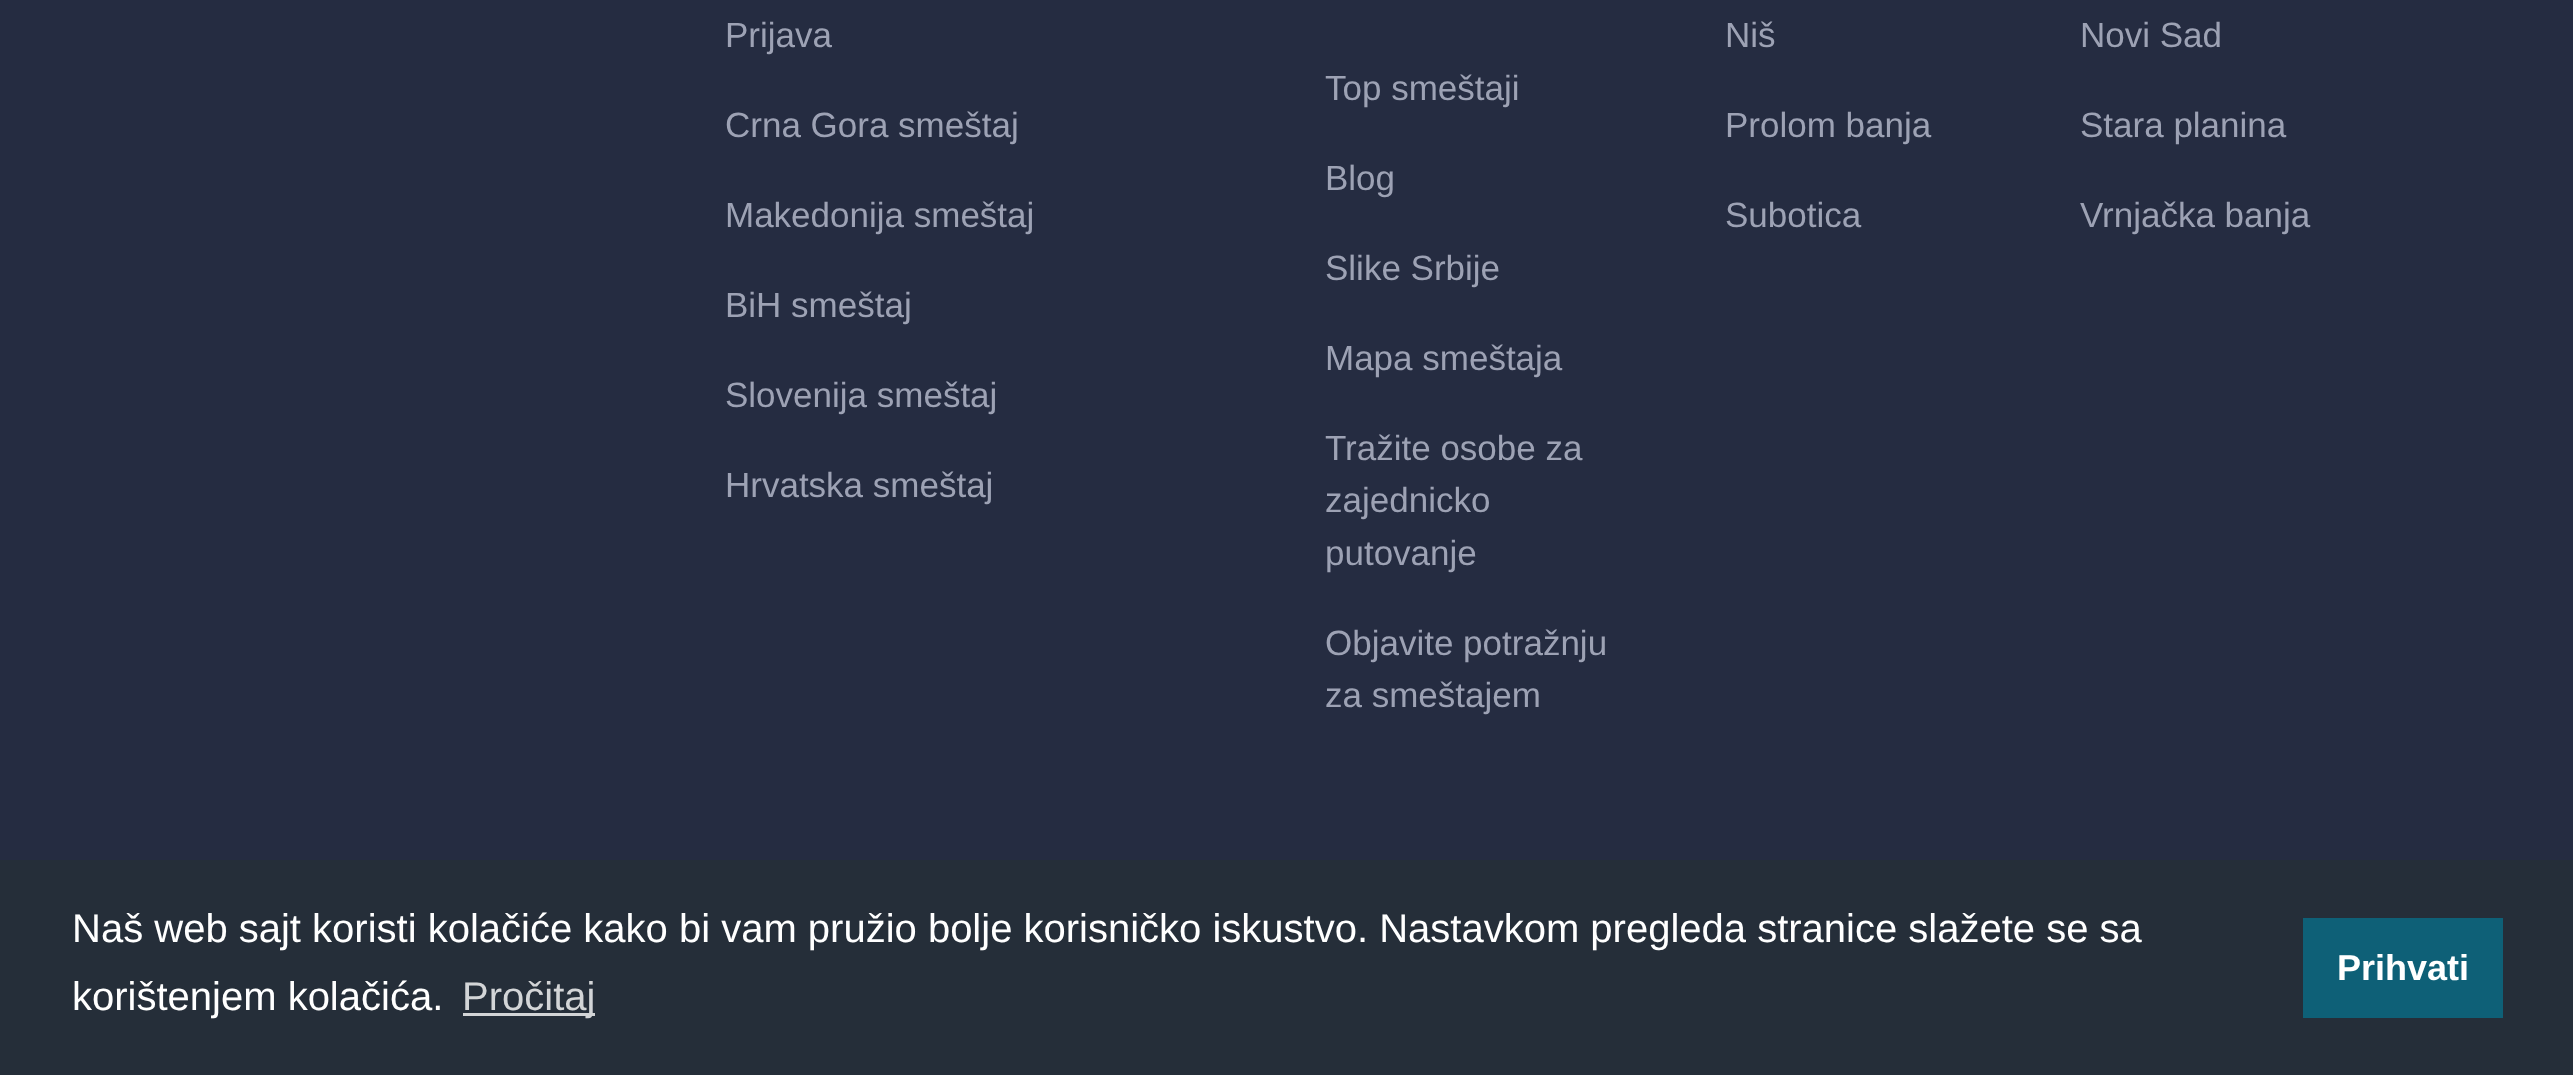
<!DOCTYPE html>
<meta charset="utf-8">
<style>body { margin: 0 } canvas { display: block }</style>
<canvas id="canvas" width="2573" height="1075"></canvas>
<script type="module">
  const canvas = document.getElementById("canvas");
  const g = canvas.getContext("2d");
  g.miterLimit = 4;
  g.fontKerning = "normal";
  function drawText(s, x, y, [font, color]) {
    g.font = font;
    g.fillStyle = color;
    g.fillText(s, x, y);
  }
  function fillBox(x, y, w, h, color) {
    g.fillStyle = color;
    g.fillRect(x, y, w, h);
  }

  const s1 = ["35px Liberation Sans", "#9DA2B4"];
  const s2 = ["40px Liberation Sans", "#FFFFFF"];
  const s3 = ["40px Liberation Sans", "#D3D5D7"];
  const s4 = ["bold 36px Liberation Sans", "#FFFFFF"];

  fillBox(0, 0, 2573, 1075, "#252C41");
  drawText("Prijava", 725, 47, s1);
  drawText("Crna Gora smeštaj", 725, 137, s1);
  drawText("Makedonija smeštaj", 725, 227, s1);
  drawText("BiH smeštaj", 725, 317, s1);
  drawText("Slovenija smeštaj", 725, 407, s1);
  drawText("Hrvatska smeštaj", 725, 497, s1);
  drawText("Top smeštaji", 1325, 100, s1);
  drawText("Blog", 1325, 190, s1);
  drawText("Slike Srbije", 1325, 280, s1);
  drawText("Mapa smeštaja", 1325, 370, s1);
  drawText("Tražite osobe za", 1325, 460, s1);
  drawText("zajednicko", 1325, 512, s1);
  drawText("putovanje", 1325, 565, s1);
  drawText("Objavite potražnju", 1325, 655, s1);
  drawText("za smeštajem", 1325, 707, s1);
  drawText("Niš", 1725, 47, s1);
  drawText("Novi Sad", 2080, 47, s1);
  drawText("Prolom banja", 1725, 137, s1);
  drawText("Stara planina", 2080, 137, s1);
  drawText("Subotica", 1725, 227, s1);
  drawText("Vrnjačka banja", 2080, 227, s1);
  fillBox(0, 860, 2573, 215, "#252E39");
  drawText("Naš web sajt koristi kolačiće kako bi vam pružio bolje korisničko iskustvo. Nastavkom pregleda stranice slažete se sa", 72, 942, s2);
  drawText("korištenjem kolačića.", 72, 1010, s2);
  fillBox(463, 1013, 132, 3, "#D3D5D7");
  drawText("Pročitaj", 462, 1010, s3);
  fillBox(2303, 918, 200, 100, "#0E6077");
  drawText("Prihvati", 2337, 980, s4);
</script>
